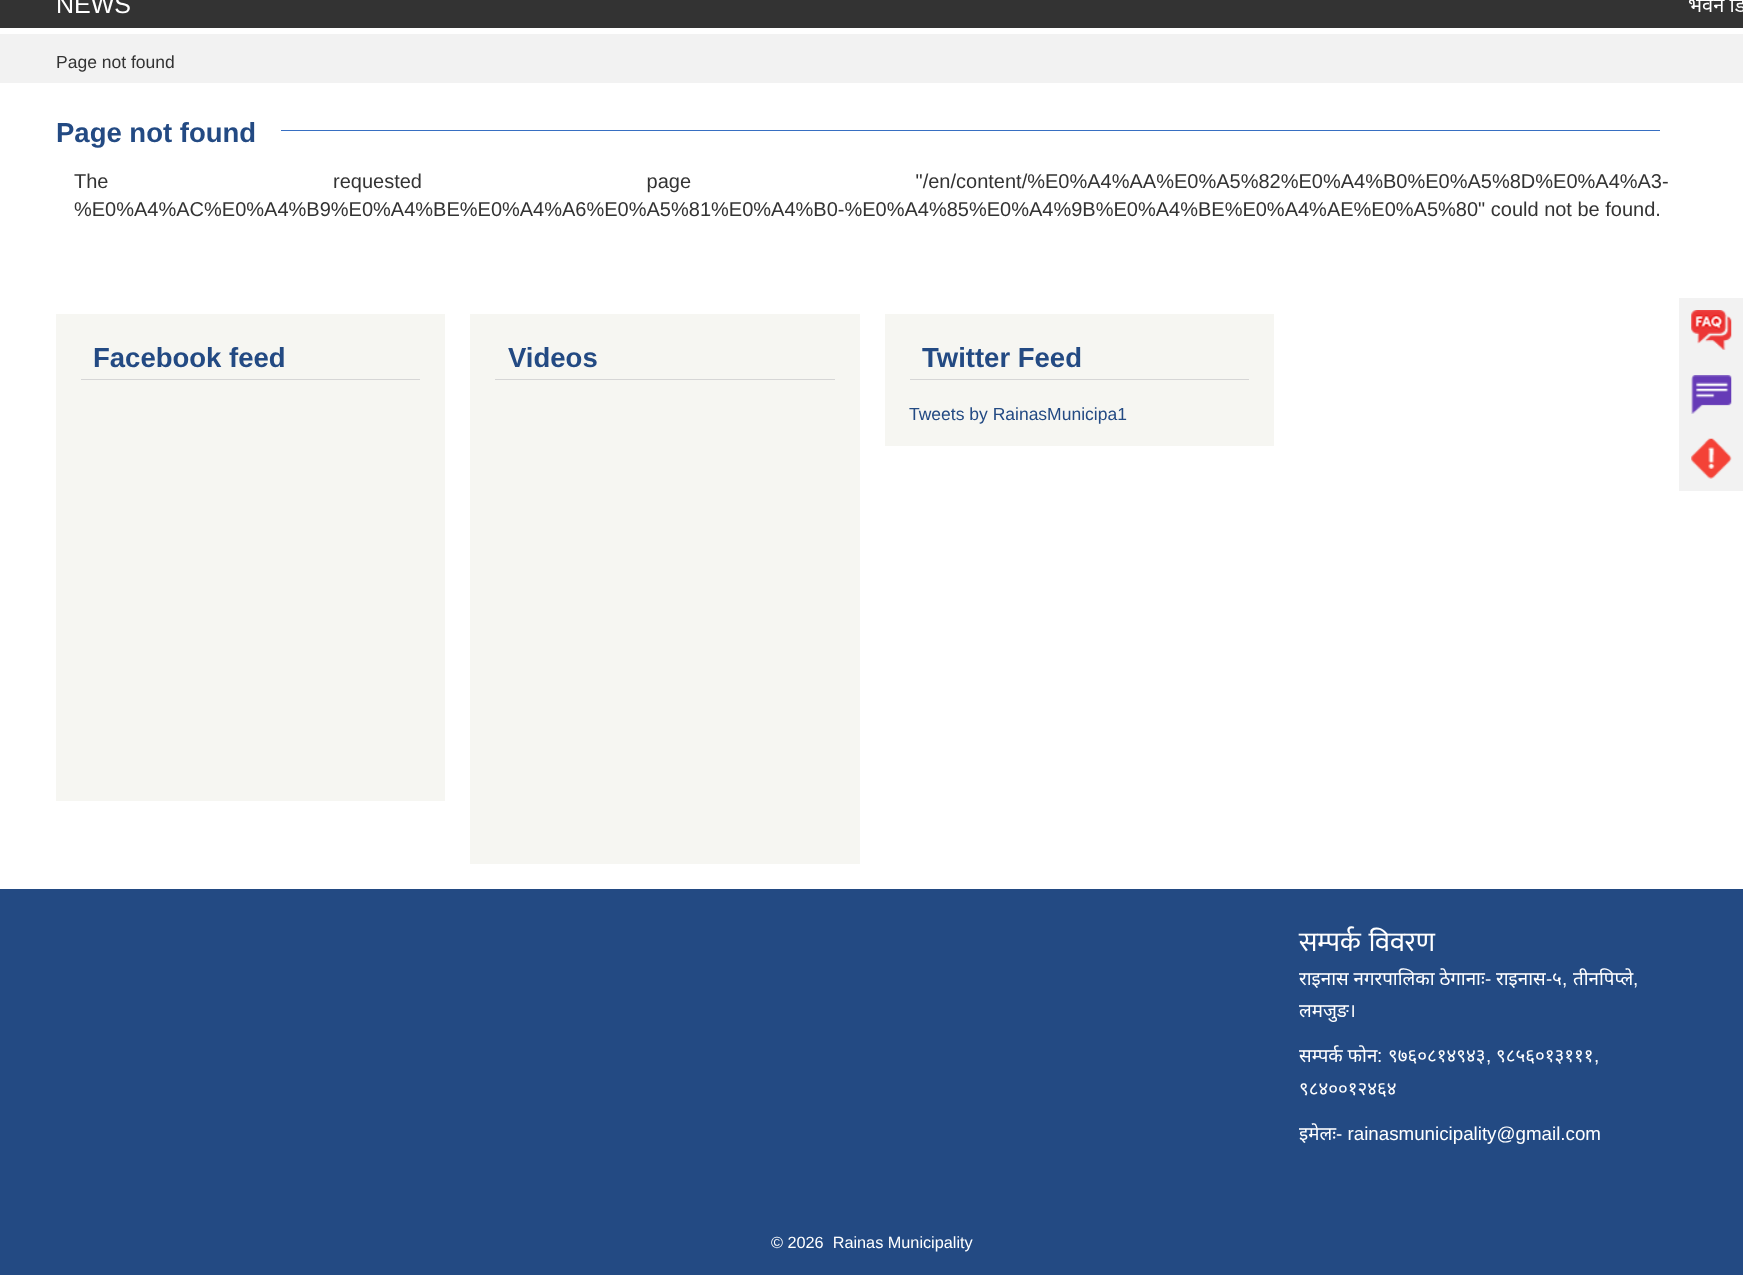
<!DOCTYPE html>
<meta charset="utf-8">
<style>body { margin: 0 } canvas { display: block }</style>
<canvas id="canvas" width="1743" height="1275"></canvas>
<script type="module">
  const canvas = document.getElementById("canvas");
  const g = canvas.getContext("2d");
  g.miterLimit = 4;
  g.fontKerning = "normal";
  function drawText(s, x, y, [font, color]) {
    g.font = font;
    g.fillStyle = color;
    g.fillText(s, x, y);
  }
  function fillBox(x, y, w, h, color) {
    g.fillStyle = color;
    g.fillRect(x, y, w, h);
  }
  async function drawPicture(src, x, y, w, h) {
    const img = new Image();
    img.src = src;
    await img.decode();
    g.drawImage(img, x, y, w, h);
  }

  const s1 = ["25px Liberation Sans", "#FFFFFF"];
  const s2 = ["20px Noto Sans", "#FFFFFF"];
  const s3 = ["17.5px Liberation Sans", "#333333"];
  const s4 = ["bold 27.5px Liberation Sans", "#234A83"];
  const s5 = ["20px Liberation Sans", "#333333"];
  const s6 = ["17.5px Liberation Sans", "#234A83"];
  const s7 = ["27.5px Mukta", "#FFFFFF"];
  const s8 = ["18.75px Noto Sans", "#FFFFFF"];
  const s9 = ["18.75px Liberation Sans", "#FFFFFF"];
  const s10 = ["16.25px Liberation Sans", "#FFFFFF"];

  fillBox(0, 0, 1743, 1275, "#FFFFFF");
  fillBox(0, 0, 1743, 28, "#333333");
  drawText("NEWS", 56, 13, s1);
  drawText("भवन डि", 1688, 12, s2);
  fillBox(0, 34, 1743, 49, "#F2F2F2");
  drawText("Page not found", 56, 68, s3);
  drawText("Page not found", 56, 142, s4);
  fillBox(281, 130, 1379, 1, "#376FC2");
  g.wordSpacing = "219px";
  drawText("The requested page \"/en/content/%E0%A4%AA%E0%A5%82%E0%A4%B0%E0%A5%8D%E0%A4%A3-", 74, 188, s5);
  g.wordSpacing = "0px";
  drawText("%E0%A4%AC%E0%A4%B9%E0%A4%BE%E0%A4%A6%E0%A5%81%E0%A4%B0-%E0%A4%85%E0%A4%9B%E0%A4%BE%E0%A4%AE%E0%A5%80\" could not be found.", 74, 216, s5);
  fillBox(56, 314, 389, 487, "#F6F6F2");
  fillBox(81, 379, 339, 1, "#D6D6D6");
  drawText("Facebook feed", 93, 367, s4);
  fillBox(470, 314, 390, 550, "#F6F6F2");
  fillBox(495, 379, 340, 1, "#D6D6D6");
  drawText("Videos", 508, 367, s4);
  fillBox(885, 314, 389, 132, "#F6F6F2");
  fillBox(910, 379, 339, 1, "#D6D6D6");
  drawText("Twitter Feed", 922, 367, s4);
  drawText("Tweets by RainasMunicipa1", 909, 420, s6);
  fillBox(1679, 298, 64, 193, "#F2F2F2");
  await drawPicture("pic1.png", 1691, 310, 41, 40);
  await drawPicture("pic2.png", 1691, 375, 41, 39);
  await drawPicture("pic3.png", 1691, 438, 41, 41);
  fillBox(0, 889, 1743, 386, "#234A83");
  g.wordSpacing = "2px";
  drawText("सम्पर्क विवरण", 1299, 951, s7);
  g.wordSpacing = "0px";
  drawText("राइनास नगरपालिका ठेगानाः", 1299, 985, s8);
  drawText("-", 1485, 985, s9);
  drawText("राइनास", 1496, 985, s8);
  drawText("-", 1546, 985, s9);
  drawText("५", 1552, 985, s8);
  drawText("तीनपिप्ले", 1573, 985, s8);
  drawText(",", 1562, 985, s9);
  drawText(",", 1633, 985, s9);
  drawText("लमजुङ।", 1299, 1017, s8);
  drawText("सम्पर्क फोन", 1299, 1062, s8);
  drawText(":", 1377, 1062, s9);
  drawText("९७६०८१४९४३", 1388, 1062, s8);
  drawText("९८५६०१३१११", 1496, 1062, s8);
  drawText(",", 1486, 1062, s9);
  drawText(",", 1594, 1062, s9);
  drawText("९८४००१२४६४", 1299, 1095, s8);
  drawText("इमेलः", 1299, 1140, s8);
  drawText("- rainasmunicipality@gmail.com", 1336, 1140, s9);
  drawText("© 2026  Rainas Municipality", 771, 1248, s10);
</script>
